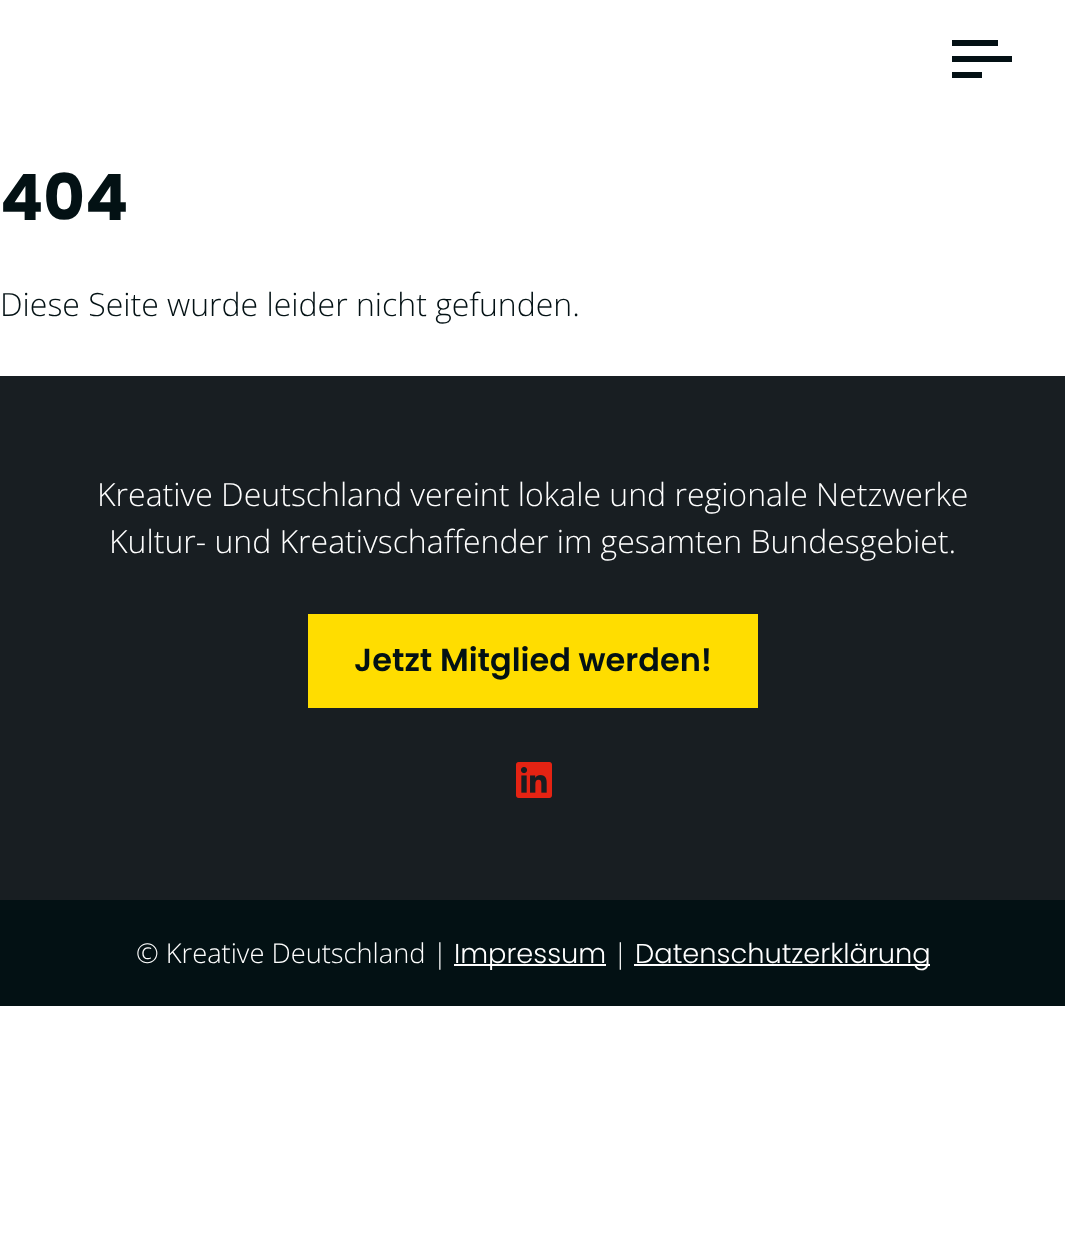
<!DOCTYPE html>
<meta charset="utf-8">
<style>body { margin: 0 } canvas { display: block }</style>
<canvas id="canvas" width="1065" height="1249"></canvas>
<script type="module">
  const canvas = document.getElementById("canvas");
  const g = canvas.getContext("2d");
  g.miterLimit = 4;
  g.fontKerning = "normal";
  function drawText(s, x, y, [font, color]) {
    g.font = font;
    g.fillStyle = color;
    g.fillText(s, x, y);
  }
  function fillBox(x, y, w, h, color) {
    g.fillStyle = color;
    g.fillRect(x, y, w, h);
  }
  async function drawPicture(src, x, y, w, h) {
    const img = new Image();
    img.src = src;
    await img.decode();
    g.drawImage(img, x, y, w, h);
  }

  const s1 = ["bold 64px Poppins", "#031114"];
  const s2 = ["300 32px Open Sans", "#031114"];
  const s3 = ["300 32px Open Sans", "#FFFFFF"];
  const s4 = ["600 32px Poppins", "#031114"];
  const s5 = ["300 27.25px Open Sans", "#FFFFFF"];
  const s6 = ["300 27.25px Poppins", "#FFFFFF"];

  fillBox(0, 0, 1065, 1249, "#FFFFFF");
  fillBox(952, 40, 46, 6, "#031014");
  fillBox(952, 56, 60, 6, "#031014");
  fillBox(952, 72, 30, 6, "#031014");
  drawText("404", 0, 220, s1);
  drawText("Diese Seite wurde leider nicht gefunden.", 0, 316, s2);
  fillBox(0, 376, 1065, 524, "#181E22");
  drawText("Kreative Deutschland vereint lokale und regionale Netzwerke", 97, 506, s3);
  drawText("Kultur- und Kreativschaffender im gesamten Bundesgebiet.", 109, 553, s3);
  fillBox(308, 614, 450, 94, "#FFDD00");
  drawText("Jetzt Mitglied werden!", 354, 671, s4);
  await drawPicture("pic1.png", 516, 762, 36, 36);
  fillBox(0, 900, 1065, 106, "#031114");
  drawText("© Kreative Deutschland |", 136, 963, s5);
  fillBox(454, 964, 152, 2, "#FFFFFF");
  drawText("Impressum", 454, 963, s6);
  drawText("|", 613, 963, s5);
  fillBox(634, 964, 296, 2, "#FFFFFF");
  drawText("Datenschutzerklärung", 635, 963, s6);
</script>
